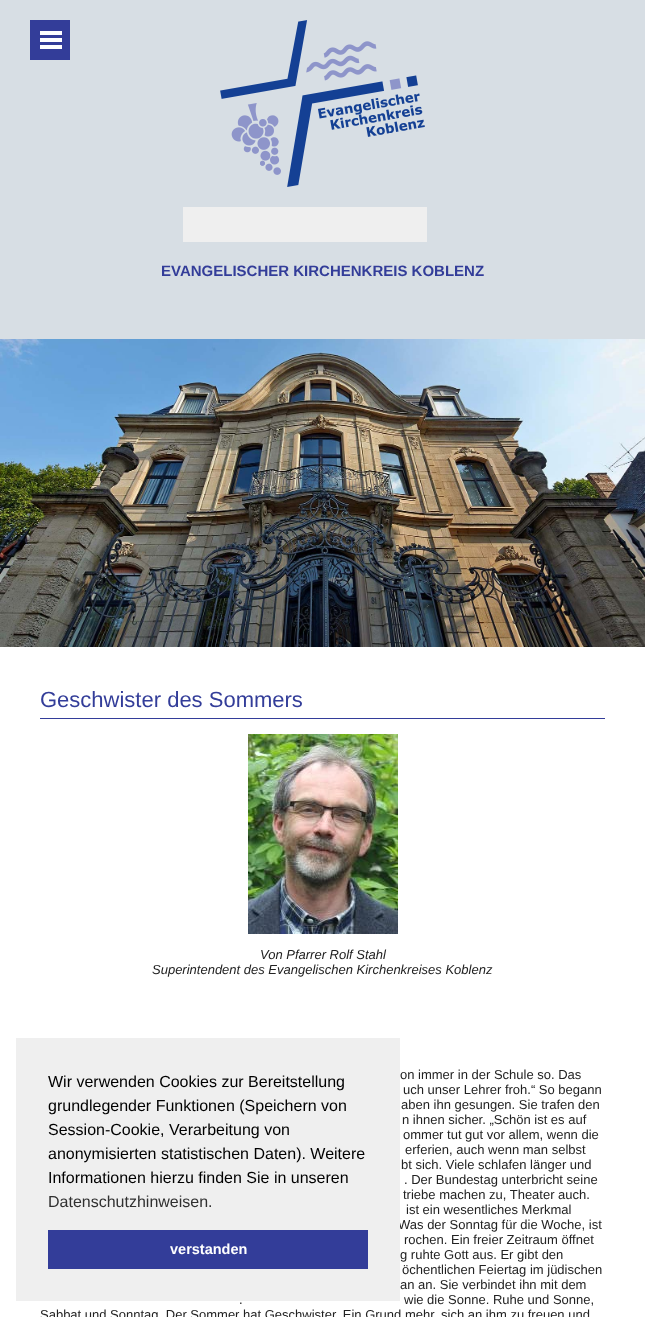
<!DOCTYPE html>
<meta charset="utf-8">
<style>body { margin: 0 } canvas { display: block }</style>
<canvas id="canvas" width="645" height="1317"></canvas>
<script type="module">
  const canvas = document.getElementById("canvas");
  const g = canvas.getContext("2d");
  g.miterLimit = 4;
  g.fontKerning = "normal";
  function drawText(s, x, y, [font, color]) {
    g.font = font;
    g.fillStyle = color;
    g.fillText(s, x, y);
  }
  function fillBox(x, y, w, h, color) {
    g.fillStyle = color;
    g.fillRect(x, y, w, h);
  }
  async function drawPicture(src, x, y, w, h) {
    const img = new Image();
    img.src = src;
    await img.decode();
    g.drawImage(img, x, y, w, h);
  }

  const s1 = ["bold 15px Liberation Sans", "#333D99"];
  const s2 = ["22px Liberation Sans", "#333D99"];
  const s3 = ["italic 13px Liberation Sans", "#222222"];
  const s4 = ["13px Liberation Sans", "#222222"];
  const s5 = ["16px Liberation Sans", "#000000"];
  const s6 = ["16px Liberation Sans", "#303030"];
  const s7 = ["bold 14.5px Liberation Sans", "#FFFFFF"];

  fillBox(0, 0, 645, 1317, "#D7DEE4");
  fillBox(30, 20, 40, 40, "#333D99");
  await drawPicture("pic1.png", 40, 31, 22, 18);
  await drawPicture("pic2.png", 220, 20, 205, 167);
  fillBox(183, 207, 244, 35, "#EFEFEF");
  drawText("EVANGELISCHER KIRCHENKREIS KOBLENZ", 161, 276, s1);
  await drawPicture("pic3.png", 0, 339, 645, 308);
  fillBox(0, 647, 645, 670, "#FFFFFF");
  fillBox(40, 718, 565, 1, "#333D99");
  drawText("Geschwister des Sommers", 40, 707, s2);
  await drawPicture("pic4.png", 248, 734, 150, 200);
  drawText("Von Pfarrer Rolf Stahl", 260, 959, s3);
  drawText("Superintendent des Evangelischen Kirchenkreises Koblenz", 152, 974, s3);
  drawText("on immer in der Schule so. Das", 400, 1079, s4);
  drawText("uch unser Lehrer froh.“ So begann", 403, 1094, s4);
  drawText("aben ihn gesungen. Sie trafen den", 401, 1109, s4);
  drawText("n ihnen sicher. „Schön ist es auf", 402, 1124, s4);
  drawText("ommer tut gut vor allem, wenn die", 403, 1139, s4);
  drawText("erferien, auch wenn man selbst", 405, 1154, s4);
  drawText("bt sich. Viele schlafen länger und", 401, 1169, s4);
  drawText(". Der Bundestag unterbricht seine", 404, 1184, s4);
  drawText("triebe machen zu, Theater auch.", 403, 1199, s4);
  drawText("ist ein wesentliches Merkmal", 406, 1214, s4);
  drawText("Was der Sonntag für die Woche, ist", 398, 1229, s4);
  drawText("rochen. Ein freier Zeitraum öffnet", 404, 1244, s4);
  drawText("g ruhte Gott aus. Er gibt den", 400, 1259, s4);
  drawText("öchentlichen Feiertag im jüdischen", 402, 1274, s4);
  drawText("an an. Sie verbindet ihn mit dem", 400, 1289, s4);
  drawText(".", 239, 1304, s4);
  drawText("wie die Sonne. Ruhe und Sonne,", 404, 1304, s4);
  drawText("Sabbat und Sonntag. Der Sommer hat Geschwister. Ein Grund mehr, sich an ihm zu freuen und", 40, 1319, s4);
  fillBox(16, 1038, 384, 263, "#EFEFEF");
  drawText("Wir verwenden Cookies zur Bereitstellung", 48, 1087, s5);
  drawText("grundlegender Funktionen (Speichern von", 48, 1111, s5);
  drawText("Session-Cookie, Verarbeitung von", 48, 1135, s5);
  drawText("anonymisierten statistischen Daten). Weitere", 48, 1159, s5);
  drawText("Informationen hierzu finden Sie in unseren", 48, 1183, s5);
  drawText("Datenschutzhinweisen.", 48, 1207, s6);
  fillBox(48, 1230, 320, 39, "#333D99");
  drawText("verstanden", 170, 1254, s7);
</script>
